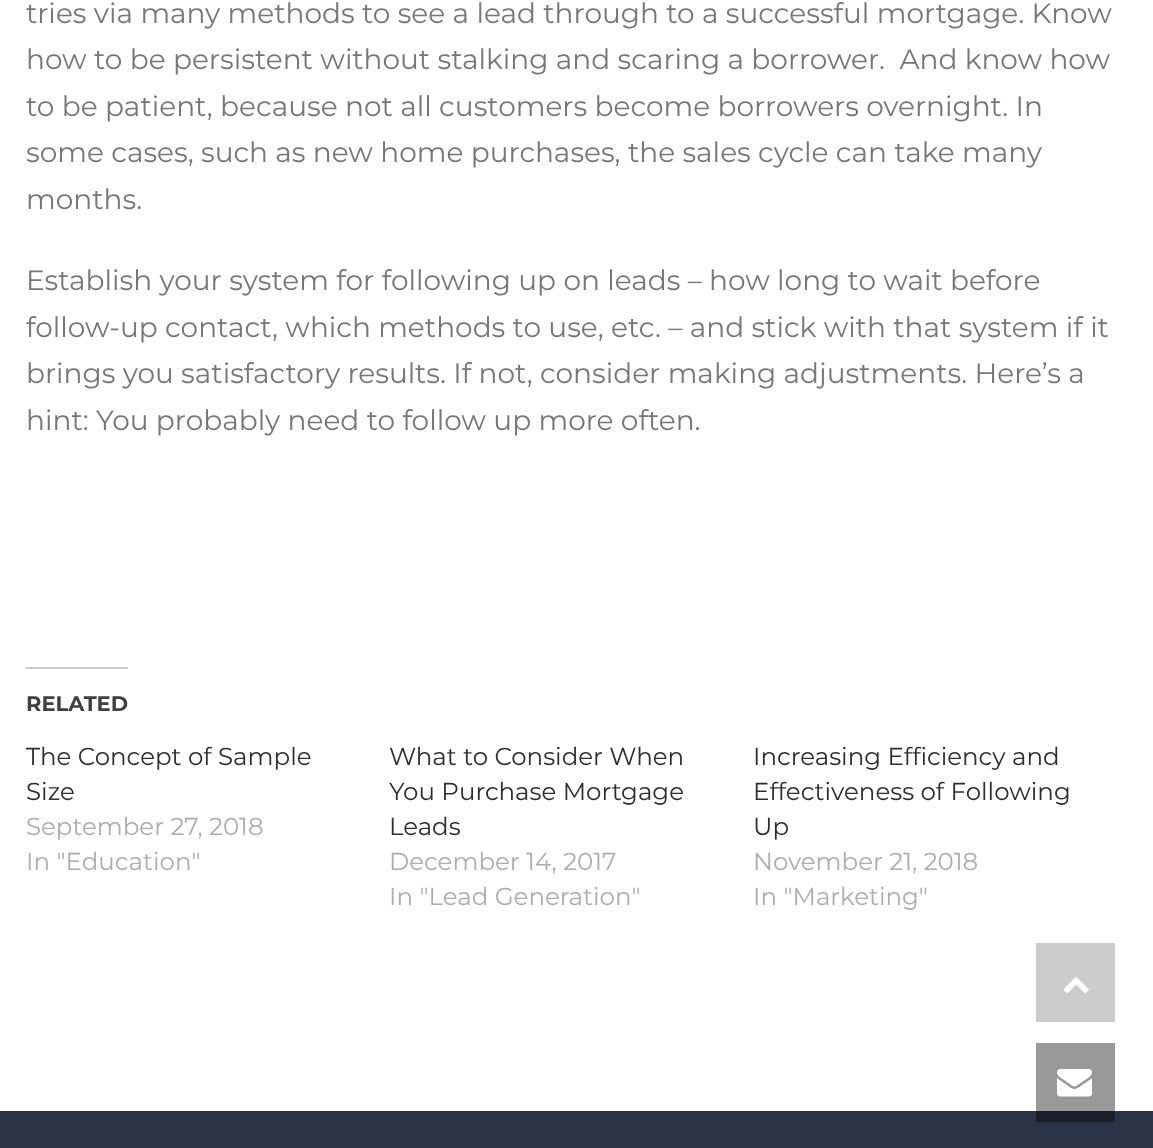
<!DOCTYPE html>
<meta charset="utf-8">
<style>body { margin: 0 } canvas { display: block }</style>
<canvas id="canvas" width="1153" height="1148"></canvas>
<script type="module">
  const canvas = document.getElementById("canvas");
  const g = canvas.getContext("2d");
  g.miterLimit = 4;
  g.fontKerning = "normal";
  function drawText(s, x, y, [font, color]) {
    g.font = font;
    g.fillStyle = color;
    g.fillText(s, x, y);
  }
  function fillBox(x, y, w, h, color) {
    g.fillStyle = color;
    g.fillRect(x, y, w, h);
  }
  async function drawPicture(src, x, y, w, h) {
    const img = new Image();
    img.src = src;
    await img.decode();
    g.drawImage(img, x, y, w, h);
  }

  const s1 = ["28px Montserrat", "#777777"];
  const s2 = ["bold 21px Montserrat", "#404040"];
  const s3 = ["24.5px Montserrat", "#2E2E2E"];
  const s4 = ["24.5px Montserrat", "#ADADAD"];

  fillBox(0, 0, 1153, 1148, "#FFFFFF");
  fillBox(1036, 1043, 79, 68, "#999999");
  drawText("tries via many methods to see a lead through to a successful mortgage. Know", 26, 23, s1);
  drawText("how to be persistent without stalking and scaring a borrower.  And know how", 26, 69, s1);
  drawText("to be patient, because not all customers become borrowers overnight. In", 26, 116, s1);
  drawText("some cases, such as new home purchases, the sales cycle can take many", 26, 162, s1);
  drawText("months.", 26, 209, s1);
  drawText("Establish your system for following up on leads – how long to wait before", 26, 290, s1);
  drawText("follow-up contact, which methods to use, etc. – and stick with that system if it", 26, 337, s1);
  drawText("brings you satisfactory results. If not, consider making adjustments. Here’s a", 26, 383, s1);
  drawText("hint: You probably need to follow up more often.", 26, 430, s1);
  fillBox(26, 667, 102, 2, "#CCCCCC");
  drawText("RELATED", 26, 711, s2);
  drawText("The Concept of Sample", 26, 765, s3);
  drawText("Size", 26, 800, s3);
  drawText("September 27, 2018", 26, 835, s4);
  drawText("In \"Education\"", 26, 870, s4);
  drawText("What to Consider When", 389, 765, s3);
  drawText("You Purchase Mortgage", 389, 800, s3);
  drawText("Leads", 389, 835, s3);
  drawText("December 14, 2017", 389, 870, s4);
  drawText("In \"Lead Generation\"", 389, 905, s4);
  drawText("Increasing Efficiency and", 753, 765, s3);
  drawText("Effectiveness of Following", 753, 800, s3);
  drawText("Up", 753, 835, s3);
  drawText("November 21, 2018", 753, 870, s4);
  drawText("In \"Marketing\"", 753, 905, s4);
  fillBox(0, 1111, 1153, 37, "#2B3346");
  fillBox(1036, 1111, 79, 11, "#1A1F2A");
  fillBox(1036, 943, 79, 79, "#CCCCCC");
  await drawPicture("pic1.png", 1063, 977, 26, 17);
  await drawPicture("pic2.png", 1057, 1069, 35, 28);
</script>
